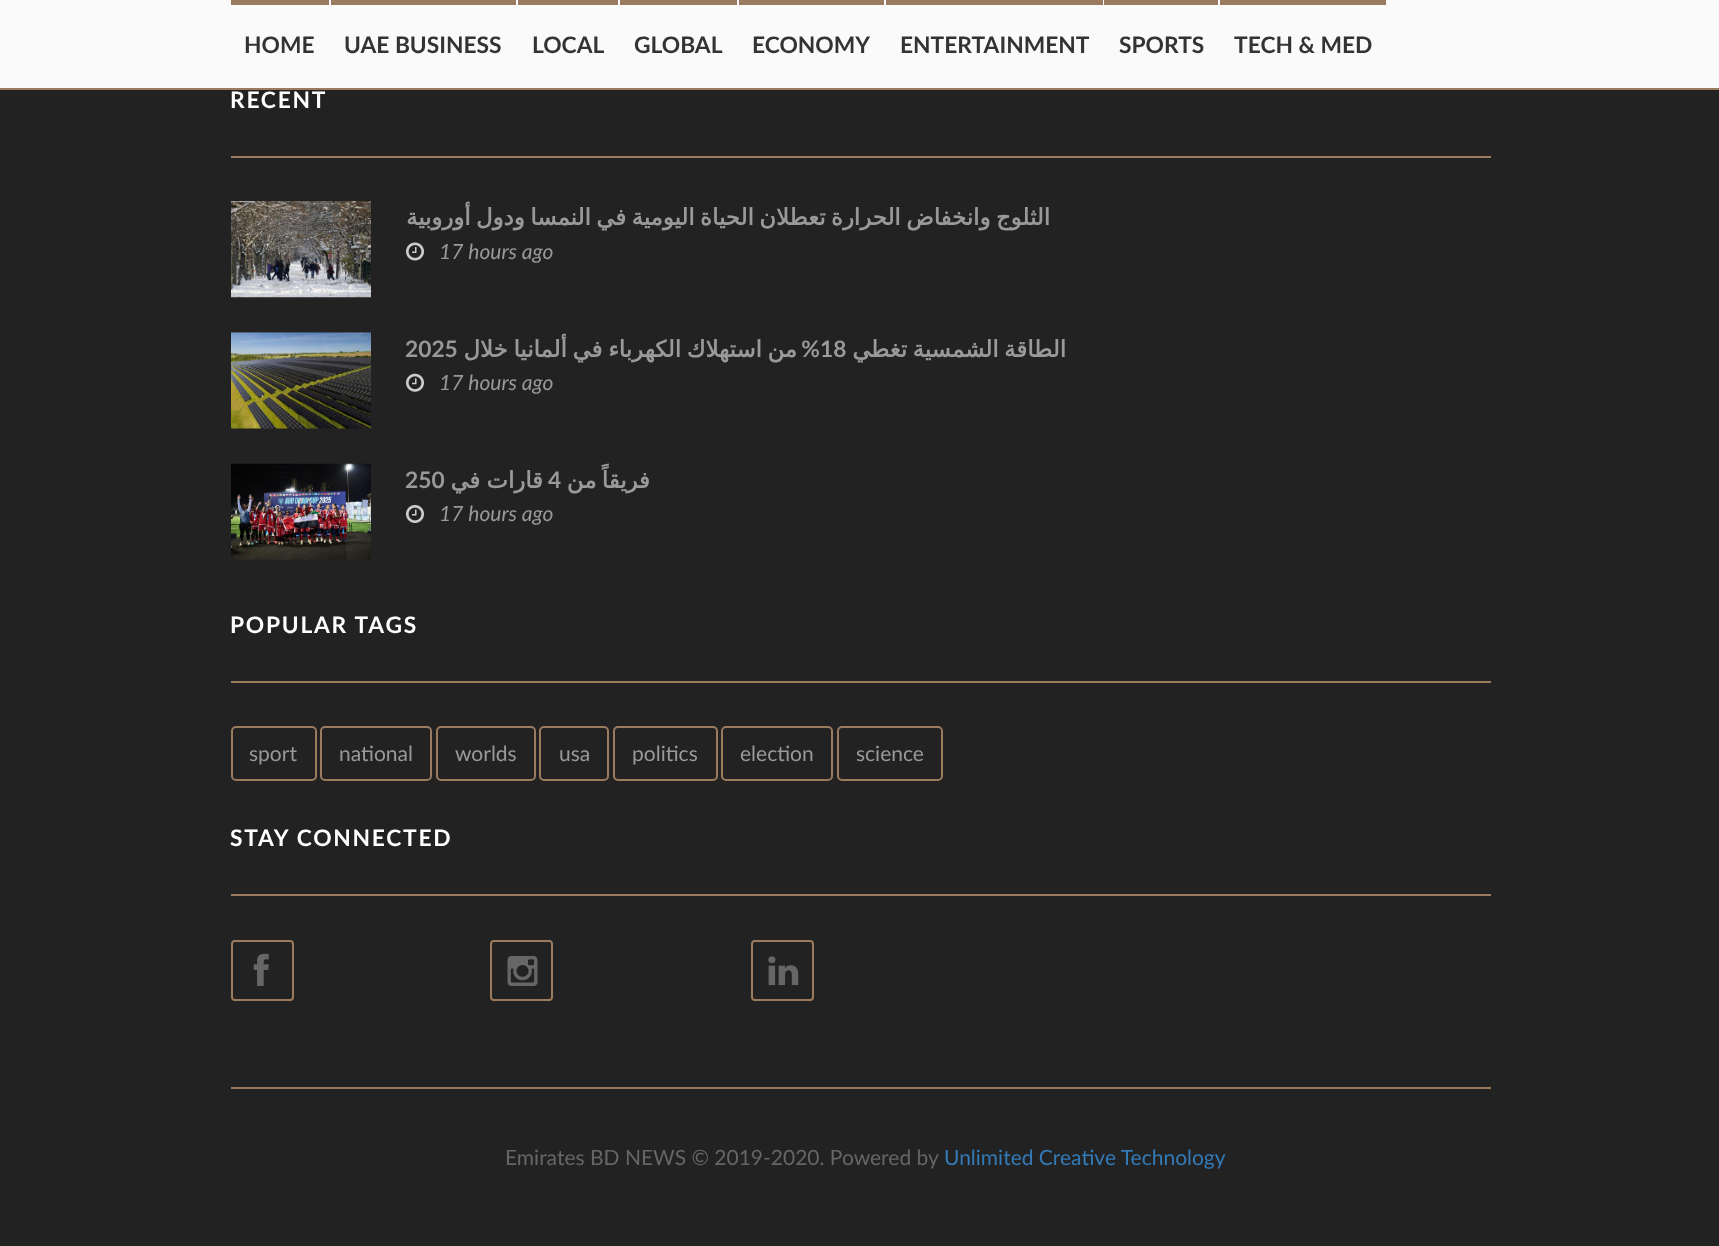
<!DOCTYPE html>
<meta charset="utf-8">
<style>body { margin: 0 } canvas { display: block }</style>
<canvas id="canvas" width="1719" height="1246"></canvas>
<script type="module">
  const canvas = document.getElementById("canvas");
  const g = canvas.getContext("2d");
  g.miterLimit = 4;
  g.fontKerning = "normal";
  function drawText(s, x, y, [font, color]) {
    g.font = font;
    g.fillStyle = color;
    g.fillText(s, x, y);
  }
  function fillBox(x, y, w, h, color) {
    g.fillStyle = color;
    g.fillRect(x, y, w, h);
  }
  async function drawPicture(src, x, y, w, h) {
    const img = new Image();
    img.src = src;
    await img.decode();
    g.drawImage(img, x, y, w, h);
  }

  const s1 = ["bold 22.75px Lato", "#333333"];
  const s2 = ["bold 22.75px Lato", "#FFFFFF"];
  const s3 = ["bold 22.75px DejaVu Sans", "#999999"];
  const s4 = ["italic 21px Lato", "#999999"];
  const s5 = ["bold 22.75px Lato", "#999999"];
  const s6 = ["21px Lato", "#999999"];
  const s7 = ["21px Lato", "#666666"];
  const s8 = ["21px Lato", "#337AB7"];

  fillBox(0, 0, 1719, 1246, "#222222");
  fillBox(0, 0, 1719, 88, "#FAFAFA");
  fillBox(0, 88, 1719, 2, "#9B7B5D");
  fillBox(231, 0, 98, 5, "#9B7B5D");
  drawText("HOME", 244, 53, s1);
  fillBox(331, 0, 185, 5, "#9B7B5D");
  drawText("UAE BUSINESS", 344, 53, s1);
  fillBox(518, 0, 100, 5, "#9B7B5D");
  drawText("LOCAL", 532, 53, s1);
  fillBox(620, 0, 117, 5, "#9B7B5D");
  drawText("GLOBAL", 634, 53, s1);
  fillBox(739, 0, 145, 5, "#9B7B5D");
  drawText("ECONOMY", 752, 53, s1);
  fillBox(886, 0, 217, 5, "#9B7B5D");
  drawText("ENTERTAINMENT", 900, 53, s1);
  fillBox(1104, 0, 114, 5, "#9B7B5D");
  drawText("SPORTS", 1119, 53, s1);
  fillBox(1220, 0, 166, 5, "#9B7B5D");
  drawText("TECH & MED", 1234, 53, s1);
  fillBox(231, 156, 1260, 2, "#9B7B5D");
  g.letterSpacing = "1.75px";
  drawText("RECENT", 230, 108, s2);
  await drawPicture("pic1.png", 231, 201, 140, 97);
  g.letterSpacing = "0px";
  g.wordSpacing = "-1.75px";
  g.direction = "rtl";
  drawText("الثلوج وانخفاض الحرارة تعطلان الحياة اليومية في النمسا ودول أوروبية", 1050, 225, s3);
  await drawPicture("pic2.png", 406, 242, 18, 19);
  g.wordSpacing = "0px";
  g.direction = "ltr";
  drawText("17 hours ago", 439, 259, s4);
  await drawPicture("pic3.png", 231, 332, 140, 97);
  drawText("2025", 405, 357, s5);
  g.wordSpacing = "-1.5px";
  g.direction = "rtl";
  drawText("من استهلاك الكهرباء في ألمانيا خلال", 797, 357, s3);
  g.wordSpacing = "0px";
  drawText("%", 820, 357, s5);
  g.direction = "ltr";
  drawText("18", 820, 357, s5);
  g.wordSpacing = "-1.75px";
  g.direction = "rtl";
  drawText("الطاقة الشمسية تغطي", 1066, 357, s3);
  await drawPicture("pic4.png", 406, 373, 18, 19);
  g.wordSpacing = "0px";
  g.direction = "ltr";
  drawText("17 hours ago", 439, 390, s4);
  await drawPicture("pic5.png", 231, 463, 140, 97);
  drawText("250", 405, 488, s5);
  g.wordSpacing = "-1px";
  g.direction = "rtl";
  drawText("قارات في", 543, 488, s3);
  g.wordSpacing = "0px";
  g.direction = "ltr";
  drawText("4", 548, 488, s5);
  g.wordSpacing = "-1.75px";
  g.direction = "rtl";
  drawText("فريقاً من", 650, 488, s3);
  await drawPicture("pic6.png", 406, 505, 18, 18);
  g.wordSpacing = "0px";
  g.direction = "ltr";
  drawText("17 hours ago", 439, 521, s4);
  fillBox(231, 681, 1260, 2, "#9B7B5D");
  g.letterSpacing = "1.75px";
  drawText("POPULAR TAGS", 230, 633, s2);
  g.beginPath();
  g.roundRect(232, 727, 84, 53, 4);
  g.strokeStyle = "#9B7B5D";
  g.lineWidth = 2;
  g.stroke();
  g.letterSpacing = "0px";
  drawText("sport", 249, 761, s6);
  g.beginPath();
  g.roundRect(321, 727, 110, 53, 4);
  g.stroke();
  drawText("national", 339, 761, s6);
  g.beginPath();
  g.roundRect(437, 727, 98, 53, 4);
  g.stroke();
  drawText("worlds", 455, 761, s6);
  g.beginPath();
  g.roundRect(540, 727, 68, 53, 4);
  g.stroke();
  drawText("usa", 559, 761, s6);
  g.beginPath();
  g.roundRect(614, 727, 103, 53, 4);
  g.stroke();
  drawText("politics", 632, 761, s6);
  g.beginPath();
  g.roundRect(722, 727, 110, 53, 4);
  g.stroke();
  drawText("election", 740, 761, s6);
  g.beginPath();
  g.roundRect(838, 727, 104, 53, 4);
  g.stroke();
  drawText("science", 856, 761, s6);
  fillBox(231, 894, 1260, 2, "#9B7B5D");
  g.letterSpacing = "1.75px";
  drawText("STAY CONNECTED", 230, 846, s2);
  g.beginPath();
  g.roundRect(232, 941, 61, 59, 3);
  g.stroke();
  await drawPicture("pic7.png", 253, 953, 16, 33);
  g.beginPath();
  g.roundRect(491, 941, 61, 59, 3);
  g.stroke();
  await drawPicture("pic8.png", 507, 956, 31, 30);
  g.beginPath();
  g.roundRect(752, 941, 61, 59, 3);
  g.stroke();
  await drawPicture("pic9.png", 768, 956, 31, 30);
  fillBox(231, 1087, 1260, 2, "#9B7B5D");
  g.letterSpacing = "0px";
  drawText("Emirates BD NEWS © 2019-2020. Powered by", 505, 1165, s7);
  drawText("Unlimited Creative Technology", 944, 1165, s8);
</script>
